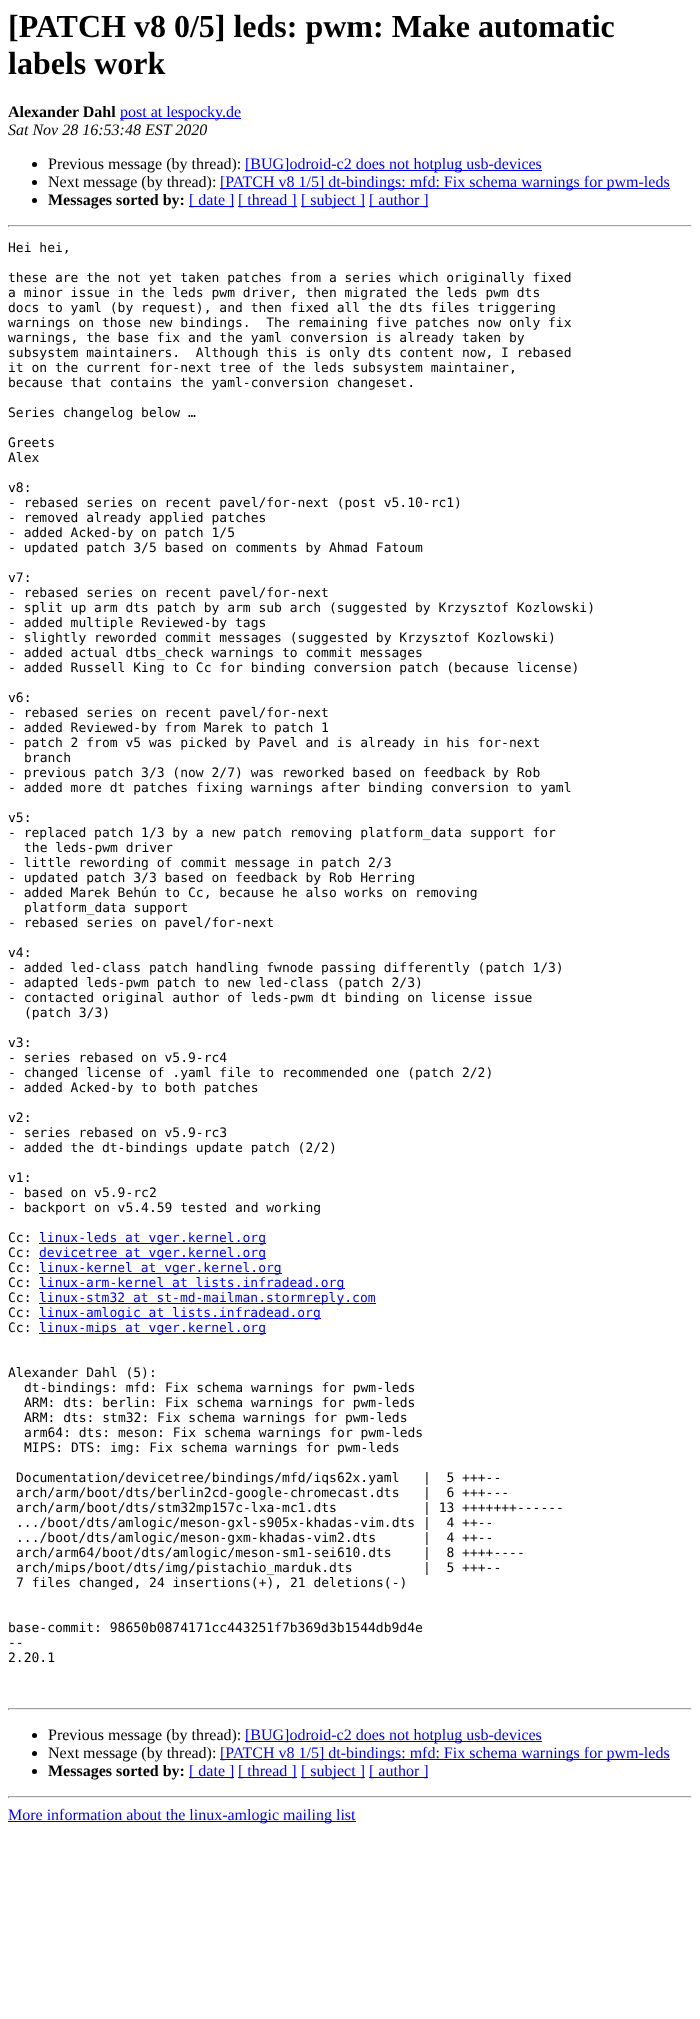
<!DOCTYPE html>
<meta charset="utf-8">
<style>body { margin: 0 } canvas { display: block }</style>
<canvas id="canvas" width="700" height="2019"></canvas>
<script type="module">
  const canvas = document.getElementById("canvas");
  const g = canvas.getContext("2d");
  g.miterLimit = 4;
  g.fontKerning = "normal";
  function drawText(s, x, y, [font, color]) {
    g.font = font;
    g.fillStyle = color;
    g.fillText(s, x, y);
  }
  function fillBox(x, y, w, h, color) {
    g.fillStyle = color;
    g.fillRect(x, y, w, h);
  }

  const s1 = ["bold 32px Liberation Serif", "#000000"];
  const s2 = ["bold 16px Liberation Serif", "#000000"];
  const s3 = ["16px Liberation Serif", "#0000EE"];
  const s4 = ["italic 16px Liberation Serif", "#000000"];
  const s5 = ["16px Liberation Serif", "#000000"];
  const s6 = ["13px DejaVu Sans Mono", "#000000"];
  const s7 = ["13px DejaVu Sans Mono", "#0000EE"];

  fillBox(0, 0, 700, 2019, "#FFFFFF");
  drawText("[PATCH v8 0/5] leds: pwm: Make automatic", 8, 37, s1);
  drawText("labels work", 8, 74, s1);
  drawText("Alexander Dahl", 8, 117, s2);
  fillBox(120, 118, 121, 1, "#0000EE");
  drawText("post at lespocky.de", 120, 117, s3);
  drawText("Sat Nov 28 16:53:48 EST 2020", 8, 135, s4);
  g.beginPath();
  g.arc(34.5, 164.5, 2.5, 0, Math.PI * 2);
  g.fill();
  drawText("Previous message (by thread):", 48, 169, s5);
  fillBox(245, 170, 297, 1, "#0000EE");
  drawText("[BUG]odroid-c2 does not hotplug usb-devices", 245, 169, s3);
  g.fillStyle = "#000000";
  g.beginPath();
  g.arc(34.5, 182.5, 2.5, 0, Math.PI * 2);
  g.fill();
  drawText("Next message (by thread):", 48, 187, s5);
  fillBox(220, 188, 450, 1, "#0000EE");
  drawText("[PATCH v8 1/5] dt-bindings: mfd: Fix schema warnings for pwm-leds", 220, 187, s3);
  g.fillStyle = "#000000";
  g.beginPath();
  g.arc(34.5, 200.5, 2.5, 0, Math.PI * 2);
  g.fill();
  drawText("Messages sorted by:", 48, 205, s2);
  fillBox(189, 206, 45, 1, "#0000EE");
  drawText("[ date ]", 189, 205, s3);
  fillBox(238, 206, 59, 1, "#0000EE");
  drawText("[ thread ]", 238, 205, s3);
  fillBox(301, 206, 64, 1, "#0000EE");
  drawText("[ subject ]", 301, 205, s3);
  fillBox(369, 206, 59, 1, "#0000EE");
  drawText("[ author ]", 369, 205, s3);
  fillBox(8, 225, 684, 1, "#9F9F9F");
  fillBox(691, 225, 1, 2, "#EEEEEE");
  fillBox(8, 226, 684, 1, "#EEEEEE");
  fillBox(8, 225, 1, 2, "#9F9F9F");
  drawText("Hei hei,", 8, 252, s6);
  drawText("these are the not yet taken patches from a series which originally fixed", 8, 282, s6);
  drawText("a minor issue in the leds pwm driver, then migrated the leds pwm dts", 8, 297, s6);
  drawText("docs to yaml (by request), and then fixed all the dts files triggering", 8, 312, s6);
  drawText("warnings on those new bindings.  The remaining five patches now only fix", 8, 327, s6);
  drawText("warnings, the base fix and the yaml conversion is already taken by", 8, 342, s6);
  drawText("subsystem maintainers.  Although this is only dts content now, I rebased", 8, 357, s6);
  drawText("it on the current for-next tree of the leds subsystem maintainer,", 8, 372, s6);
  drawText("because that contains the yaml-conversion changeset.", 8, 387, s6);
  drawText("Series changelog below …", 8, 417, s6);
  drawText("Greets", 8, 447, s6);
  drawText("Alex", 8, 462, s6);
  drawText("v8:", 8, 492, s6);
  drawText("- rebased series on recent pavel/for-next (post v5.10-rc1)", 8, 507, s6);
  drawText("- removed already applied patches", 8, 522, s6);
  drawText("- added Acked-by on patch 1/5", 8, 537, s6);
  drawText("- updated patch 3/5 based on comments by Ahmad Fatoum", 8, 552, s6);
  drawText("v7:", 8, 582, s6);
  drawText("- rebased series on recent pavel/for-next", 8, 597, s6);
  drawText("- split up arm dts patch by arm sub arch (suggested by Krzysztof Kozlowski)", 8, 612, s6);
  drawText("- added multiple Reviewed-by tags", 8, 627, s6);
  drawText("- slightly reworded commit messages (suggested by Krzysztof Kozlowski)", 8, 642, s6);
  drawText("- added actual dtbs_check warnings to commit messages", 8, 657, s6);
  drawText("- added Russell King to Cc for binding conversion patch (because license)", 8, 672, s6);
  drawText("v6:", 8, 702, s6);
  drawText("- rebased series on recent pavel/for-next", 8, 717, s6);
  drawText("- added Reviewed-by from Marek to patch 1", 8, 732, s6);
  drawText("- patch 2 from v5 was picked by Pavel and is already in his for-next", 8, 747, s6);
  drawText("branch", 24, 762, s6);
  drawText("- previous patch 3/3 (now 2/7) was reworked based on feedback by Rob", 8, 777, s6);
  drawText("- added more dt patches fixing warnings after binding conversion to yaml", 8, 792, s6);
  drawText("v5:", 8, 822, s6);
  drawText("- replaced patch 1/3 by a new patch removing platform_data support for", 8, 837, s6);
  drawText("the leds-pwm driver", 24, 852, s6);
  drawText("- little rewording of commit message in patch 2/3", 8, 867, s6);
  drawText("- updated patch 3/3 based on feedback by Rob Herring", 8, 882, s6);
  drawText("- added Marek Behún to Cc, because he also works on removing", 8, 897, s6);
  drawText("platform_data support", 24, 912, s6);
  drawText("- rebased series on pavel/for-next", 8, 927, s6);
  drawText("v4:", 8, 957, s6);
  drawText("- added led-class patch handling fwnode passing differently (patch 1/3)", 8, 972, s6);
  drawText("- adapted leds-pwm patch to new led-class (patch 2/3)", 8, 987, s6);
  drawText("- contacted original author of leds-pwm dt binding on license issue", 8, 1002, s6);
  drawText("(patch 3/3)", 24, 1017, s6);
  drawText("v3:", 8, 1047, s6);
  drawText("- series rebased on v5.9-rc4", 8, 1062, s6);
  drawText("- changed license of .yaml file to recommended one (patch 2/2)", 8, 1077, s6);
  drawText("- added Acked-by to both patches", 8, 1092, s6);
  drawText("v2:", 8, 1122, s6);
  drawText("- series rebased on v5.9-rc3", 8, 1137, s6);
  drawText("- added the dt-bindings update patch (2/2)", 8, 1152, s6);
  drawText("v1:", 8, 1182, s6);
  drawText("- based on v5.9-rc2", 8, 1197, s6);
  drawText("- backport on v5.4.59 tested and working", 8, 1212, s6);
  drawText("Cc:", 8, 1242, s6);
  fillBox(39, 1243, 227, 1, "#0000EE");
  drawText("linux-leds at vger.kernel.org", 39, 1242, s7);
  drawText("Cc:", 8, 1257, s6);
  fillBox(39, 1258, 227, 1, "#0000EE");
  drawText("devicetree at vger.kernel.org", 39, 1257, s7);
  drawText("Cc:", 8, 1272, s6);
  fillBox(39, 1273, 243, 1, "#0000EE");
  drawText("linux-kernel at vger.kernel.org", 39, 1272, s7);
  drawText("Cc:", 8, 1287, s6);
  fillBox(39, 1288, 306, 1, "#0000EE");
  drawText("linux-arm-kernel at lists.infradead.org", 39, 1287, s7);
  drawText("Cc:", 8, 1302, s6);
  fillBox(39, 1303, 337, 1, "#0000EE");
  drawText("linux-stm32 at st-md-mailman.stormreply.com", 39, 1302, s7);
  drawText("Cc:", 8, 1317, s6);
  fillBox(39, 1318, 282, 1, "#0000EE");
  drawText("linux-amlogic at lists.infradead.org", 39, 1317, s7);
  drawText("Cc:", 8, 1332, s6);
  fillBox(39, 1333, 227, 1, "#0000EE");
  drawText("linux-mips at vger.kernel.org", 39, 1332, s7);
  drawText("Alexander Dahl (5):", 8, 1377, s6);
  drawText("dt-bindings: mfd: Fix schema warnings for pwm-leds", 24, 1392, s6);
  drawText("ARM: dts: berlin: Fix schema warnings for pwm-leds", 24, 1407, s6);
  drawText("ARM: dts: stm32: Fix schema warnings for pwm-leds", 24, 1422, s6);
  drawText("arm64: dts: meson: Fix schema warnings for pwm-leds", 24, 1437, s6);
  drawText("MIPS: DTS: img: Fix schema warnings for pwm-leds", 24, 1452, s6);
  drawText("Documentation/devicetree/bindings/mfd/iqs62x.yaml   |  5 +++--", 16, 1482, s6);
  drawText("arch/arm/boot/dts/berlin2cd-google-chromecast.dts   |  6 +++---", 16, 1497, s6);
  drawText("arch/arm/boot/dts/stm32mp157c-lxa-mc1.dts           | 13 +++++++------", 16, 1512, s6);
  drawText(".../boot/dts/amlogic/meson-gxl-s905x-khadas-vim.dts |  4 ++--", 16, 1527, s6);
  drawText(".../boot/dts/amlogic/meson-gxm-khadas-vim2.dts      |  4 ++--", 16, 1542, s6);
  drawText("arch/arm64/boot/dts/amlogic/meson-sm1-sei610.dts    |  8 ++++----", 16, 1557, s6);
  drawText("arch/mips/boot/dts/img/pistachio_marduk.dts         |  5 +++--", 16, 1572, s6);
  drawText("7 files changed, 24 insertions(+), 21 deletions(-)", 16, 1587, s6);
  drawText("base-commit: 98650b0874171cc443251f7b369d3b1544db9d4e", 8, 1632, s6);
  drawText("--", 8, 1647, s6);
  drawText("2.20.1", 8, 1662, s6);
  fillBox(8, 1708, 684, 1, "#9F9F9F");
  fillBox(691, 1708, 1, 2, "#EEEEEE");
  fillBox(8, 1709, 684, 1, "#EEEEEE");
  fillBox(8, 1708, 1, 2, "#9F9F9F");
  g.fillStyle = "#000000";
  g.beginPath();
  g.arc(34.5, 1735.5, 2.5, 0, Math.PI * 2);
  g.fill();
  drawText("Previous message (by thread):", 48, 1740, s5);
  fillBox(245, 1741, 297, 1, "#0000EE");
  drawText("[BUG]odroid-c2 does not hotplug usb-devices", 245, 1740, s3);
  g.fillStyle = "#000000";
  g.beginPath();
  g.arc(34.5, 1753.5, 2.5, 0, Math.PI * 2);
  g.fill();
  drawText("Next message (by thread):", 48, 1758, s5);
  fillBox(220, 1759, 450, 1, "#0000EE");
  drawText("[PATCH v8 1/5] dt-bindings: mfd: Fix schema warnings for pwm-leds", 220, 1758, s3);
  g.fillStyle = "#000000";
  g.beginPath();
  g.arc(34.5, 1771.5, 2.5, 0, Math.PI * 2);
  g.fill();
  drawText("Messages sorted by:", 48, 1776, s2);
  fillBox(189, 1777, 45, 1, "#0000EE");
  drawText("[ date ]", 189, 1776, s3);
  fillBox(238, 1777, 59, 1, "#0000EE");
  drawText("[ thread ]", 238, 1776, s3);
  fillBox(301, 1777, 64, 1, "#0000EE");
  drawText("[ subject ]", 301, 1776, s3);
  fillBox(369, 1777, 59, 1, "#0000EE");
  drawText("[ author ]", 369, 1776, s3);
  fillBox(8, 1796, 684, 1, "#9F9F9F");
  fillBox(691, 1796, 1, 2, "#EEEEEE");
  fillBox(8, 1797, 684, 1, "#EEEEEE");
  fillBox(8, 1796, 1, 2, "#9F9F9F");
  fillBox(8, 1821, 348, 1, "#0000EE");
  drawText("More information about the linux-amlogic mailing list", 8, 1820, s3);
</script>
